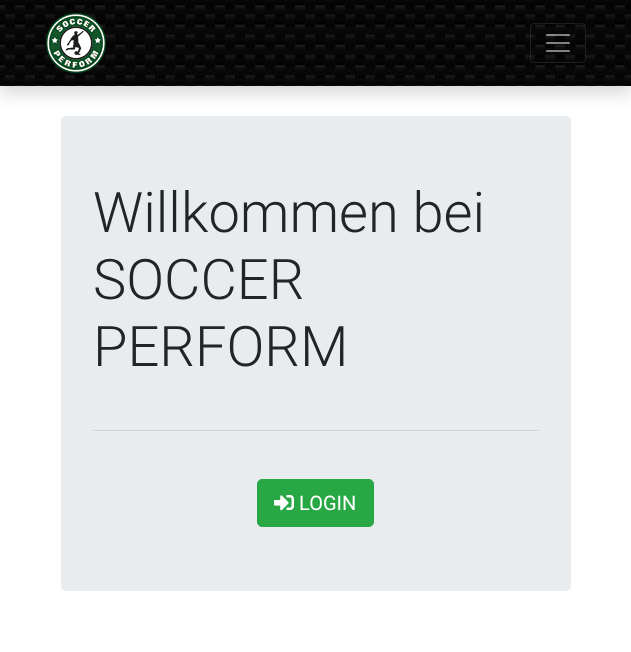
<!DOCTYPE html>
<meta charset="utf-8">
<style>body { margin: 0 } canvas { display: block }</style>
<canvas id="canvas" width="631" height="652"></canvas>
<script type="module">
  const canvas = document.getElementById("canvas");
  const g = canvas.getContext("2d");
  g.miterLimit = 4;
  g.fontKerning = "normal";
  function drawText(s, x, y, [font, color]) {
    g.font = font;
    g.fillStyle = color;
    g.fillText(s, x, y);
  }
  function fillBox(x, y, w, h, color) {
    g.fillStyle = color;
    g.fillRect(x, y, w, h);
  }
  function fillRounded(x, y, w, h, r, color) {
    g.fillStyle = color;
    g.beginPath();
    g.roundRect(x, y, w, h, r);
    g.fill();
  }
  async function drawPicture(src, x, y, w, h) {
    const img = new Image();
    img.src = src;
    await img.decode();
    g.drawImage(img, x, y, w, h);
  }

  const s1 = ["300 56px Roboto", "#212529"];
  const s2 = ["20px Roboto", "#FFFFFF"];

  fillBox(0, 0, 631, 652, "#FFFFFF");
  fillRounded(61, 116, 510, 475, 5, "#E9ECEF");
  g.fillStyle = "rgba(0, 0, 0, 0.15)";
  g.filter = "blur(8px)";
  g.beginPath();
  g.rect(0, 8, 631, 86);
  g.fill();
  g.filter = "none";
  await drawPicture("pic1.png", 0, 0, 631, 86);
  await drawPicture("pic2.png", 46, 13, 60, 60);
  g.beginPath();
  g.roundRect(530.5, 23.5, 55, 39, 3.5);
  g.strokeStyle = "rgba(255, 255, 255, 0.1)";
  g.stroke();
  await drawPicture("pic3.png", 546, 34, 24, 18);
  drawText("Willkommen bei", 93, 232, s1);
  drawText("SOCCER", 93, 299, s1);
  drawText("PERFORM", 93, 366, s1);
  fillBox(93, 430, 446, 1, "#D2D4D7");
  g.fillStyle = "#28A745";
  g.beginPath();
  g.roundRect(257.5, 479.5, 116, 47, 4.5);
  g.fill();
  g.strokeStyle = "#28A745";
  g.stroke();
  await drawPicture("pic4.png", 274, 495, 20, 16);
  drawText("LOGIN", 299, 510, s2);
</script>
